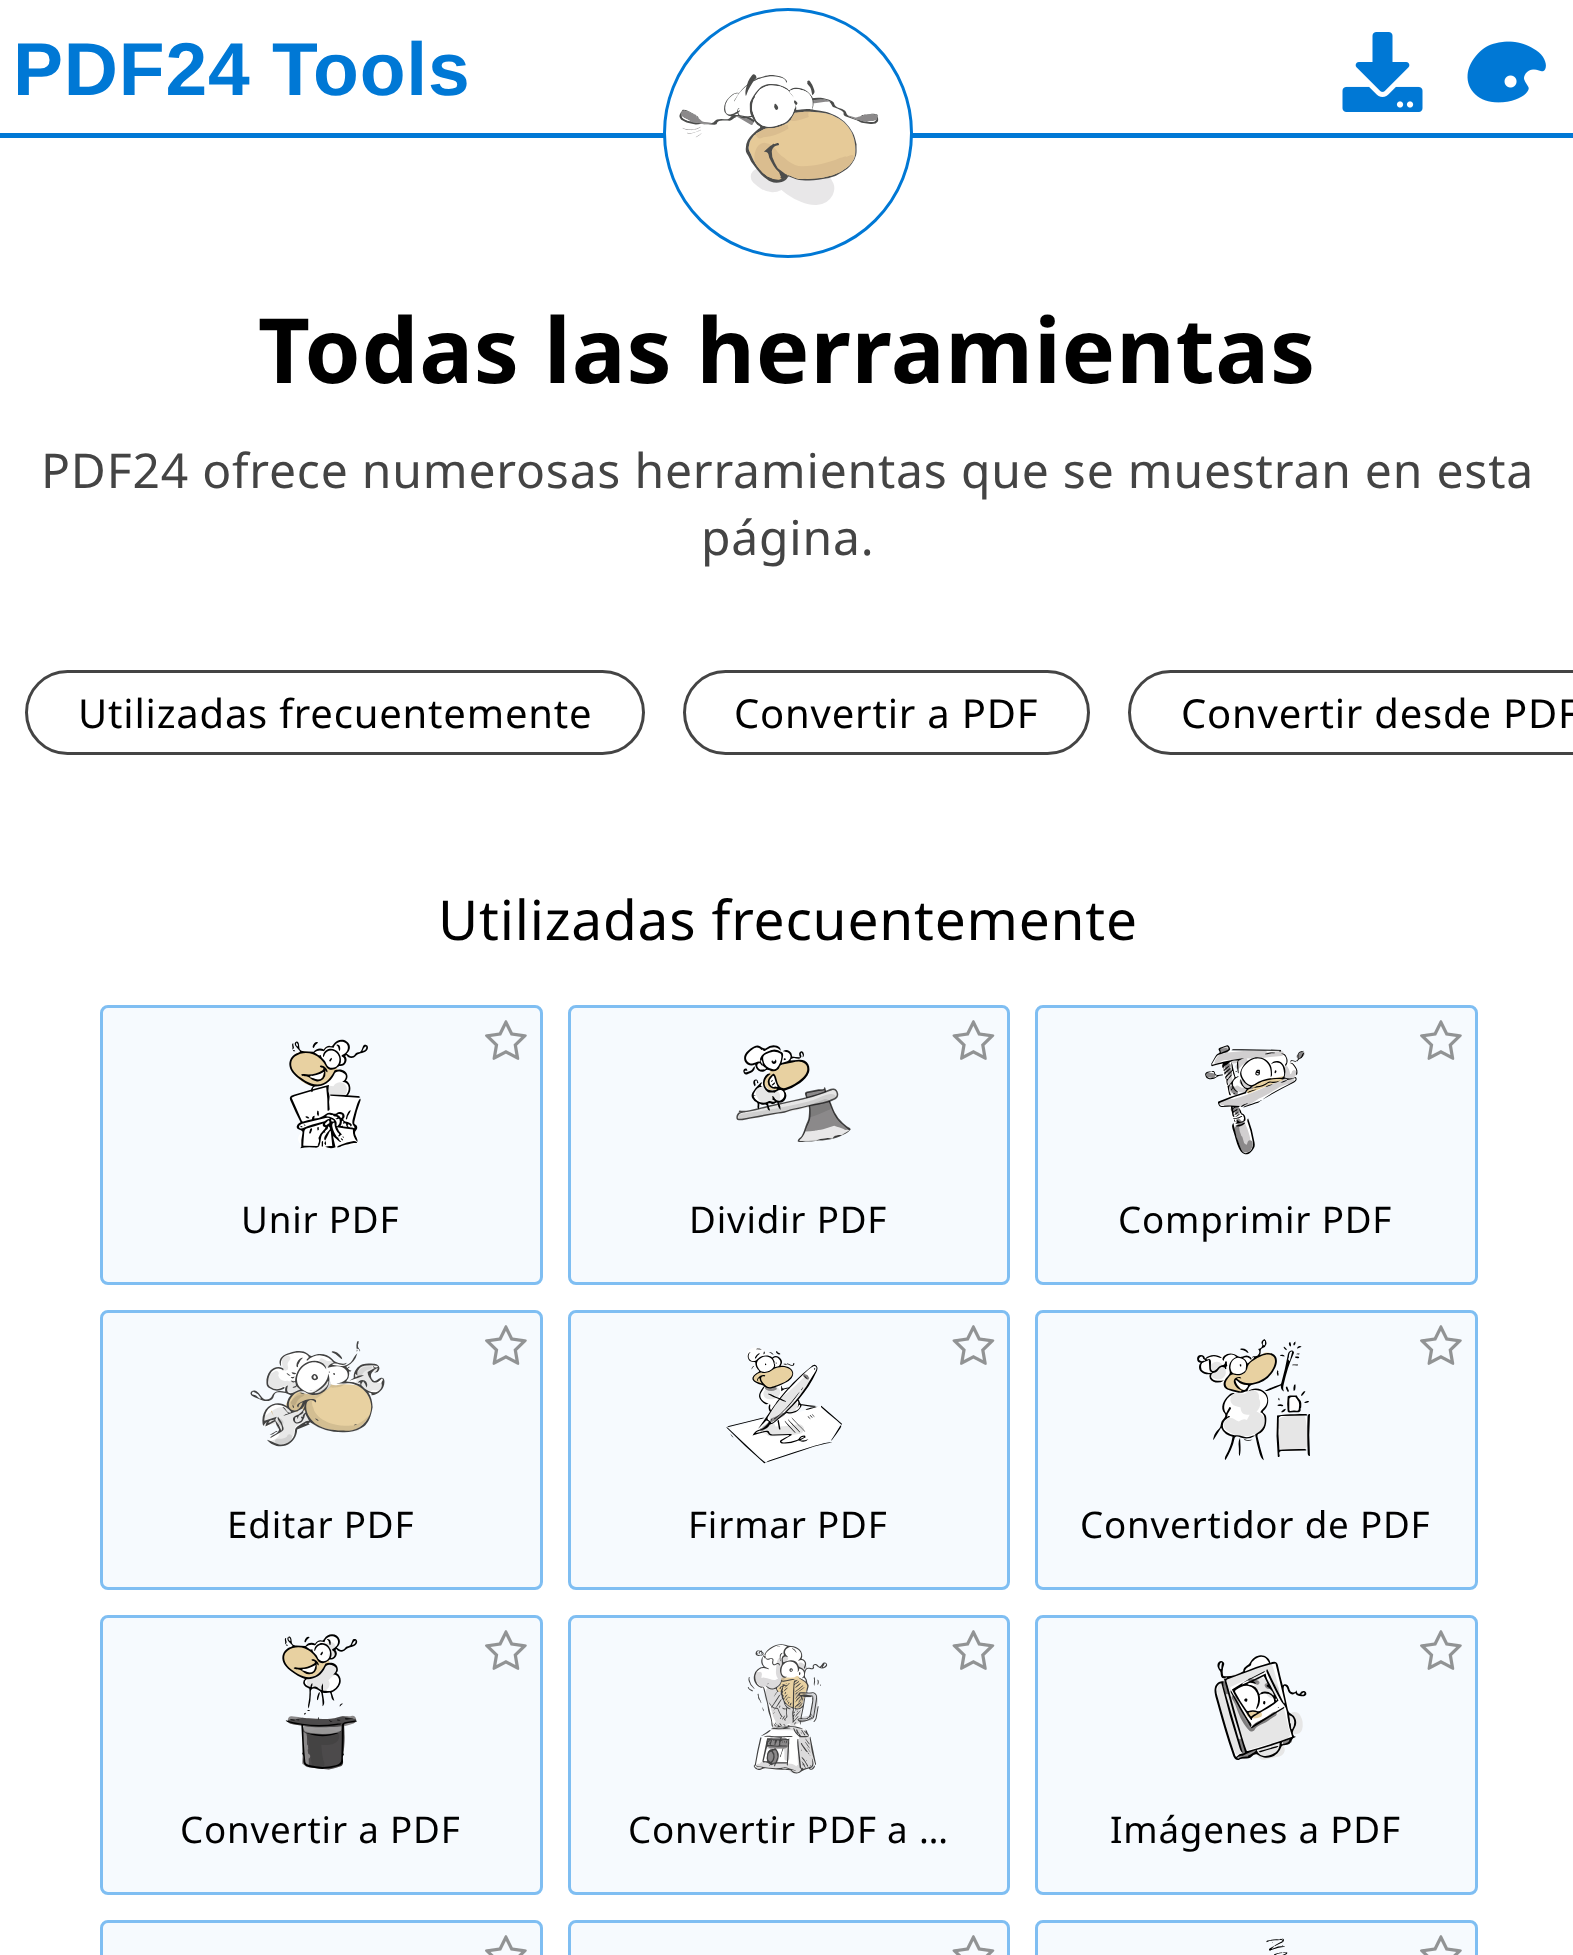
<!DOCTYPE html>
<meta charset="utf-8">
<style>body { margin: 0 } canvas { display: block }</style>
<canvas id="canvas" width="1573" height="1955"></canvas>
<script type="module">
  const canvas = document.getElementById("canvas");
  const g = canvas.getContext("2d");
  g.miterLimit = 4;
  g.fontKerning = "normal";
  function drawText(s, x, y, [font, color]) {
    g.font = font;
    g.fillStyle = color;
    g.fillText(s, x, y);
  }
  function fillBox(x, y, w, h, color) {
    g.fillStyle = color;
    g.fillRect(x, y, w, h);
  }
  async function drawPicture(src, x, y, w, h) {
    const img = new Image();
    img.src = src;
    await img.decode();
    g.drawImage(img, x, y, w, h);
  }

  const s1 = ["bold 75px Liberation Sans", "#0078D5"];
  const s2 = ["bold 90px Noto Sans", "#000000"];
  const s3 = ["48px Noto Sans", "#444444"];
  const s4 = ["40px Noto Sans", "#000000"];
  const s5 = ["55px Noto Sans", "#000000"];
  const s6 = ["36.75px Noto Sans", "#000000"];

  fillBox(0, 0, 1573, 1955, "#FFFFFF");
  fillBox(0, 133, 1573, 5, "#0078D5");
  g.letterSpacing = "0.8px";
  drawText("PDF24 Tools", 13, 95, s1);
  g.fillStyle = "#FFFFFF";
  g.beginPath();
  g.arc(788, 133, 123.5, 0, Math.PI * 2);
  g.fill();
  g.strokeStyle = "#0078D5";
  g.lineWidth = 3;
  g.stroke();
  await drawPicture("pic1.png", 679, 74, 200, 131);
  await drawPicture("pic2.png", 1342, 32, 81, 80);
  await drawPicture("pic3.png", 1467, 41, 79, 62);
  drawText("Todas las herramientas", 258, 383, s2);
  drawText("PDF24 ofrece numerosas herramientas que se muestran en esta", 41, 488, s3);
  drawText("página.", 701, 555, s3);
  g.beginPath();
  g.roundRect(26.5, 671.5, 617, 82, 41);
  g.strokeStyle = "#444444";
  g.stroke();
  drawText("Utilizadas frecuentemente", 78, 728, s4);
  g.beginPath();
  g.roundRect(684.5, 671.5, 404, 82, 41);
  g.stroke();
  drawText("Convertir a PDF", 734, 728, s4);
  g.beginPath();
  g.roundRect(1129.5, 671.5, 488, 82, 41);
  g.stroke();
  drawText("Convertir desde PDF", 1181, 728, s4);
  drawText("Utilizadas frecuentemente", 438, 940, s5);
  g.fillStyle = "#F6FAFE";
  g.beginPath();
  g.roundRect(101.5, 1006.5, 440, 277, 6.5);
  g.fill();
  g.strokeStyle = "#7FBEF2";
  g.stroke();
  await drawPicture("pic4.png", 289, 1039, 79, 110);
  await drawPicture("pic5.png", 485, 1020, 42, 40);
  drawText("Unir PDF", 241, 1233, s6);
  g.fillStyle = "#F6FAFE";
  g.beginPath();
  g.roundRect(569.5, 1006.5, 439, 277, 6.5);
  g.fill();
  g.stroke();
  await drawPicture("pic6.png", 952, 1020, 43, 40);
  await drawPicture("pic7.png", 736, 1045, 115, 97);
  drawText("Dividir PDF", 689, 1233, s6);
  g.fillStyle = "#F6FAFE";
  g.beginPath();
  g.roundRect(1036.5, 1006.5, 440, 277, 6.5);
  g.fill();
  g.stroke();
  await drawPicture("pic5.png", 1420, 1020, 42, 40);
  await drawPicture("pic8.png", 1205, 1045, 100, 110);
  drawText("Comprimir PDF", 1118, 1233, s6);
  g.fillStyle = "#F6FAFE";
  g.beginPath();
  g.roundRect(101.5, 1311.5, 440, 277, 6.5);
  g.fill();
  g.stroke();
  await drawPicture("pic9.png", 250, 1341, 135, 106);
  await drawPicture("pic5.png", 485, 1325, 42, 40);
  drawText("Editar PDF", 227, 1538, s6);
  g.fillStyle = "#F6FAFE";
  g.beginPath();
  g.roundRect(569.5, 1311.5, 439, 277, 6.5);
  g.fill();
  g.stroke();
  await drawPicture("pic10.png", 726, 1347, 116, 117);
  await drawPicture("pic6.png", 952, 1325, 43, 40);
  drawText("Firmar PDF", 688, 1538, s6);
  g.fillStyle = "#F6FAFE";
  g.beginPath();
  g.roundRect(1036.5, 1311.5, 440, 277, 6.5);
  g.fill();
  g.stroke();
  await drawPicture("pic11.png", 1197, 1339, 113, 122);
  await drawPicture("pic5.png", 1420, 1325, 42, 40);
  drawText("Convertidor de PDF", 1080, 1538, s6);
  g.fillStyle = "#F6FAFE";
  g.beginPath();
  g.roundRect(101.5, 1616.5, 440, 277, 6.5);
  g.fill();
  g.stroke();
  await drawPicture("pic12.png", 282, 1634, 76, 136);
  await drawPicture("pic5.png", 485, 1630, 42, 40);
  drawText("Convertir a PDF", 180, 1843, s6);
  g.fillStyle = "#F6FAFE";
  g.beginPath();
  g.roundRect(569.5, 1616.5, 439, 277, 6.5);
  g.fill();
  g.stroke();
  await drawPicture("pic13.png", 747, 1644, 81, 130);
  await drawPicture("pic6.png", 952, 1630, 43, 40);
  drawText("Convertir PDF a …", 628, 1843, s6);
  g.fillStyle = "#F6FAFE";
  g.beginPath();
  g.roundRect(1036.5, 1616.5, 440, 277, 6.5);
  g.fill();
  g.stroke();
  await drawPicture("pic5.png", 1420, 1630, 42, 40);
  await drawPicture("pic14.png", 1214, 1655, 93, 105);
  drawText("Imágenes a PDF", 1110, 1843, s6);
  g.fillStyle = "#F6FAFE";
  g.beginPath();
  g.roundRect(101.5, 1921.5, 440, 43, 6.5);
  g.fill();
  g.stroke();
  await drawPicture("pic15.png", 485, 1935, 42, 20);
  g.beginPath();
  g.roundRect(569.5, 1921.5, 439, 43, 6.5);
  g.fill();
  g.stroke();
  await drawPicture("pic16.png", 952, 1935, 43, 20);
  g.beginPath();
  g.roundRect(1036.5, 1921.5, 440, 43, 6.5);
  g.fill();
  g.stroke();
  await drawPicture("pic17.png", 1266, 1938, 22, 17);
  await drawPicture("pic15.png", 1420, 1935, 42, 20);
</script>
